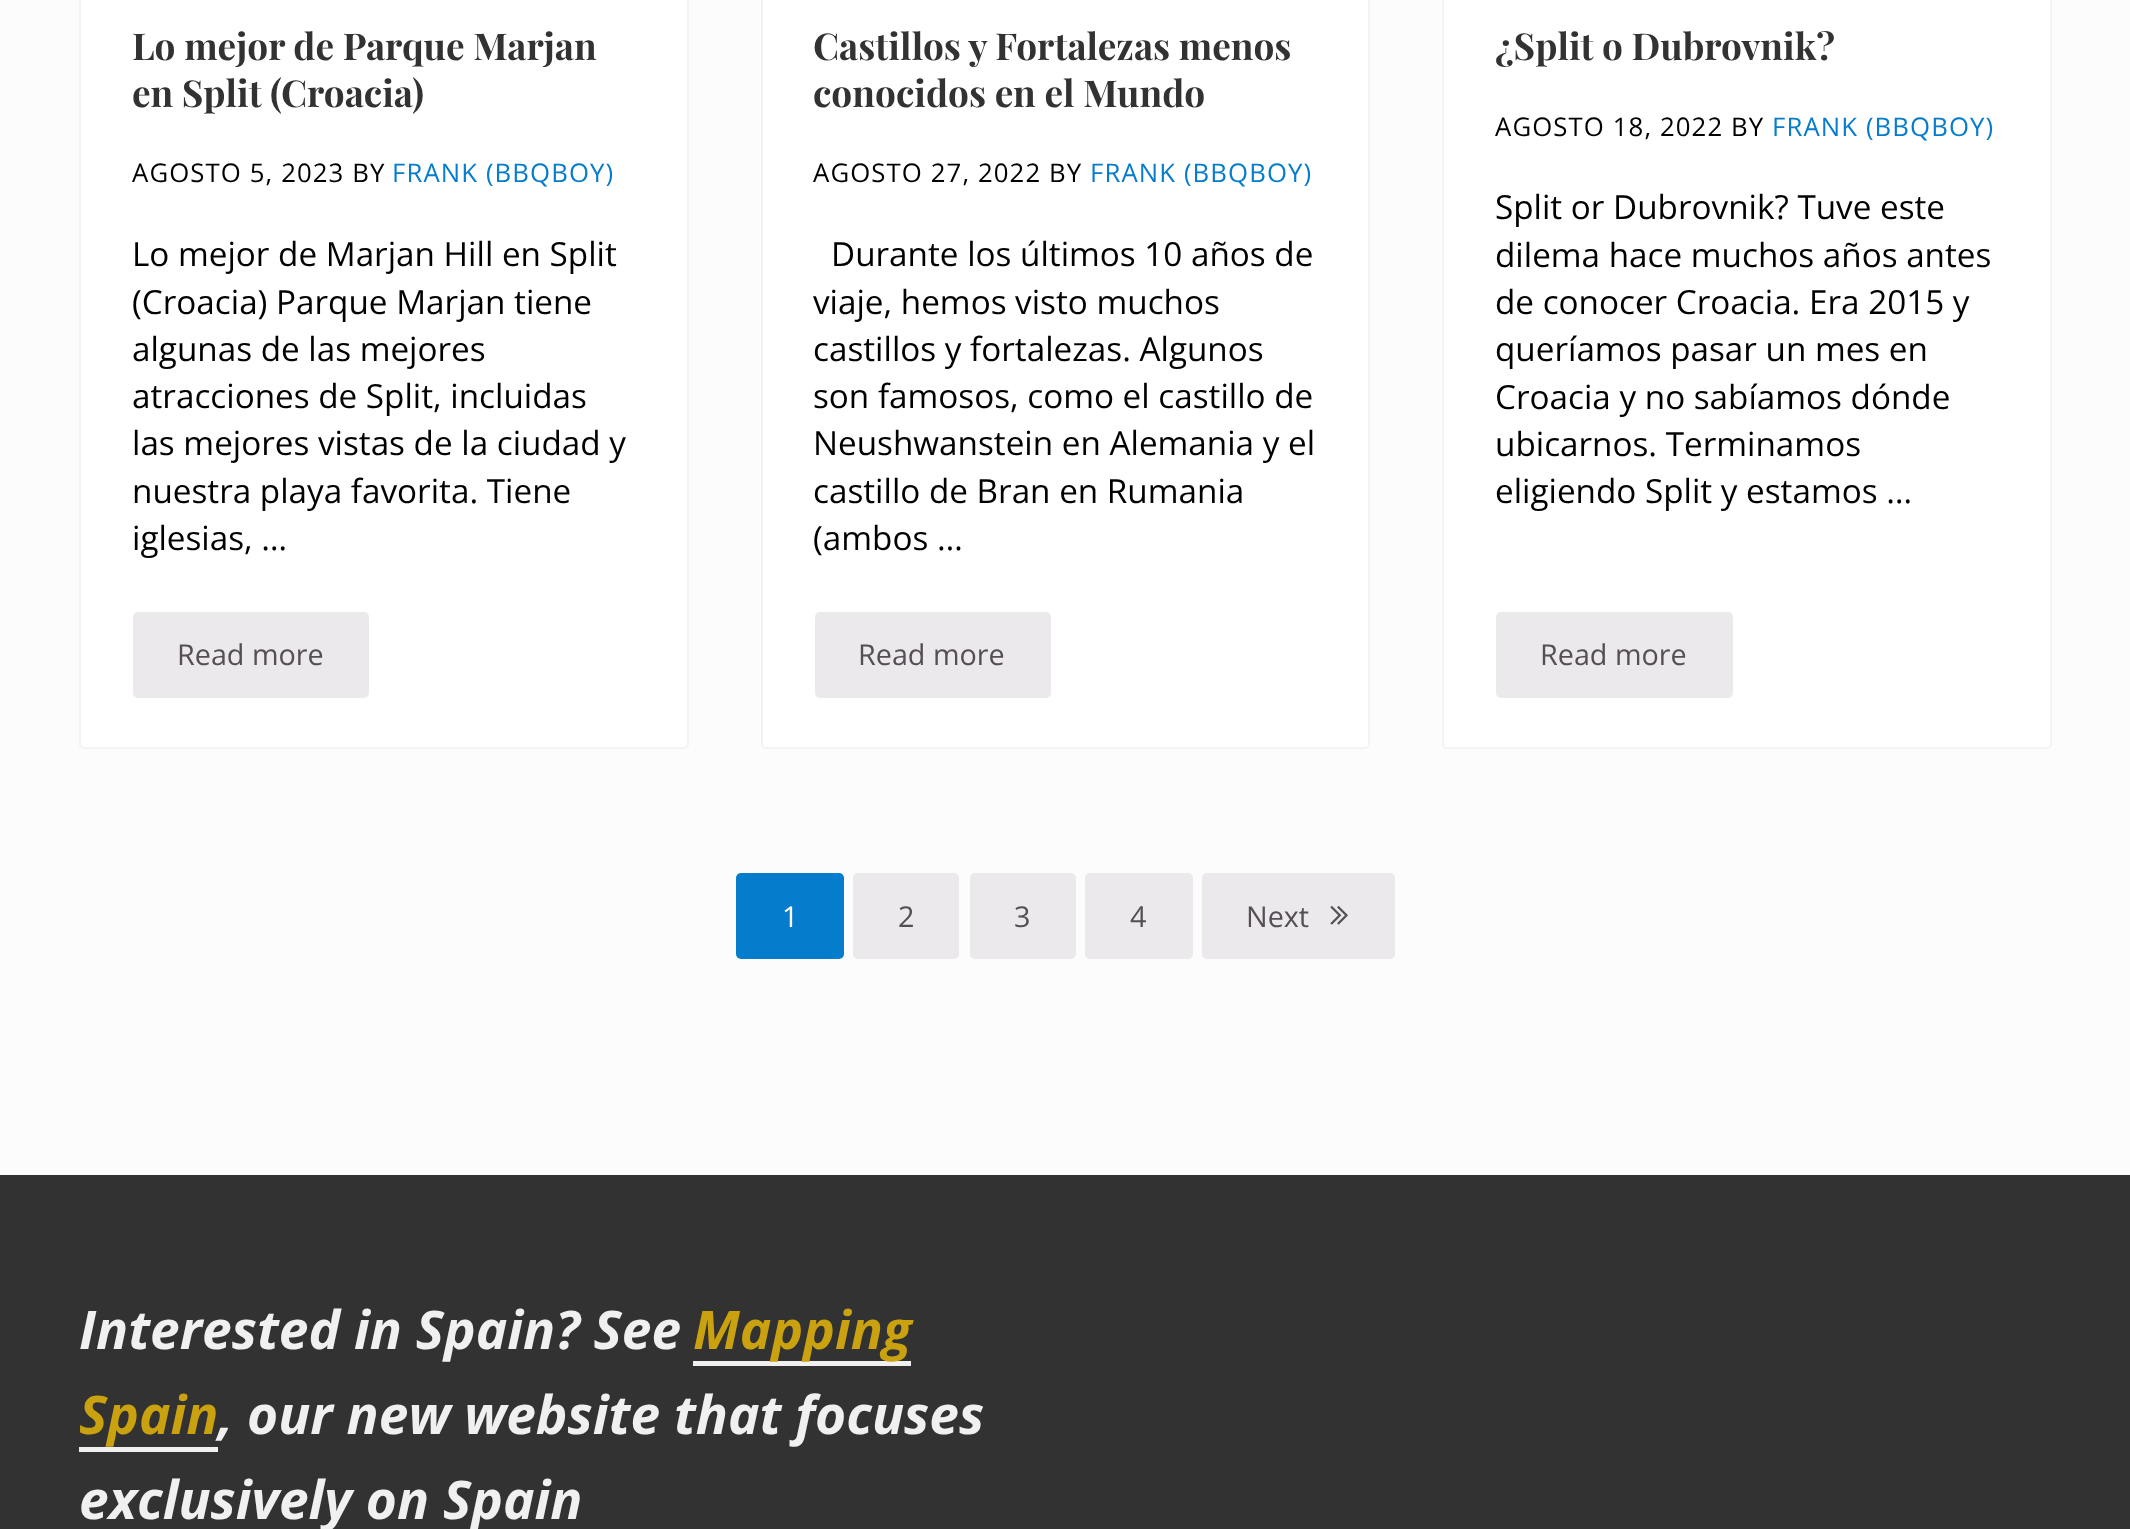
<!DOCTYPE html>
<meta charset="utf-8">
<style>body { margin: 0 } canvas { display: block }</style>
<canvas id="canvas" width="2130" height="1529"></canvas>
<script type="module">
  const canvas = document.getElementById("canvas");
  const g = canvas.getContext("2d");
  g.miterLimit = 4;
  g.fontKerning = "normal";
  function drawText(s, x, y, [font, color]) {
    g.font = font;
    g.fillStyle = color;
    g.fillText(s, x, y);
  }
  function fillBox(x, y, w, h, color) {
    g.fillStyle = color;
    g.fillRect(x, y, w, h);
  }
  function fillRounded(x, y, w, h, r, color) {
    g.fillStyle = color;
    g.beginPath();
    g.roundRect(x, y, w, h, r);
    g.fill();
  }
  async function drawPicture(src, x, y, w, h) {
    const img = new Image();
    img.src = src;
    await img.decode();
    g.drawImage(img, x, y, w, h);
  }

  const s1 = ["bold 37px Playfair Display", "#323232"];
  const s2 = ["25.75px Open Sans", "#000000"];
  const s3 = ["25.75px Open Sans", "#067CCC"];
  const s4 = ["33.25px Open Sans", "#000000"];
  const s5 = ["28.75px Open Sans", "#564E56"];
  const s6 = ["28.75px Open Sans", "#FFFFFF"];
  const s7 = ["italic bold 53.25px Open Sans", "#F0F0F0"];
  const s8 = ["italic bold 53.25px Open Sans", "#CAA10E"];

  fillBox(0, 0, 2130, 1529, "#FCFCFC");
  g.fillStyle = "#FFFFFF";
  g.beginPath();
  g.roundRect(80, -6, 608, 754, 4);
  g.fill();
  g.strokeStyle = "#F3F3F4";
  g.lineWidth = 2;
  g.stroke();
  drawText("Lo mejor de Parque Marjan", 132, 60, s1);
  drawText("en Split (Croacia)", 132, 107, s1);
  g.letterSpacing = "1.1px";
  drawText("AGOSTO 5, 2023 BY", 132, 182, s2);
  drawText("FRANK (BBQBOY)", 392, 182, s3);
  g.letterSpacing = "0px";
  drawText("Lo mejor de Marjan Hill en Split", 132, 266, s4);
  drawText("(Croacia) Parque Marjan tiene", 132, 314, s4);
  drawText("algunas de las mejores", 132, 361, s4);
  drawText("atracciones de Split, incluidas", 132, 408, s4);
  drawText("las mejores vistas de la ciudad y", 132, 455, s4);
  drawText("nuestra playa favorita. Tiene", 132, 503, s4);
  drawText("iglesias, …", 132, 550, s4);
  fillRounded(133, 612, 236, 86, 5, "#EBE9EB");
  drawText("Read more", 177, 665, s5);
  g.fillStyle = "#FFFFFF";
  g.beginPath();
  g.roundRect(762, -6, 607, 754, 4);
  g.fill();
  g.stroke();
  drawText("Castillos y Fortalezas menos", 813, 60, s1);
  drawText("conocidos en el Mundo", 813, 107, s1);
  g.letterSpacing = "1.1px";
  drawText("AGOSTO 27, 2022 BY", 813, 182, s2);
  drawText("FRANK (BBQBOY)", 1090, 182, s3);
  g.letterSpacing = "0px";
  drawText("Durante los últimos 10 años de", 831, 266, s4);
  drawText("viaje, hemos visto muchos", 813, 314, s4);
  drawText("castillos y fortalezas. Algunos", 813, 361, s4);
  drawText("son famosos, como el castillo de", 813, 408, s4);
  drawText("Neushwanstein en Alemania y el", 813, 455, s4);
  drawText("castillo de Bran en Rumania", 813, 503, s4);
  drawText("(ambos …", 813, 550, s4);
  fillRounded(815, 612, 236, 86, 5, "#EBE9EB");
  drawText("Read more", 858, 665, s5);
  g.fillStyle = "#FFFFFF";
  g.beginPath();
  g.roundRect(1443, -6, 608, 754, 4);
  g.fill();
  g.stroke();
  drawText("¿Split o Dubrovnik?", 1495, 60, s1);
  g.letterSpacing = "1.1px";
  drawText("AGOSTO 18, 2022 BY", 1495, 136, s2);
  drawText("FRANK (BBQBOY)", 1772, 136, s3);
  g.letterSpacing = "0px";
  drawText("Split or Dubrovnik? Tuve este", 1495, 219, s4);
  drawText("dilema hace muchos años antes", 1495, 267, s4);
  drawText("de conocer Croacia. Era 2015 y", 1495, 314, s4);
  drawText("queríamos pasar un mes en", 1495, 361, s4);
  drawText("Croacia y no sabíamos dónde", 1495, 409, s4);
  drawText("ubicarnos. Terminamos", 1495, 456, s4);
  drawText("eligiendo Split y estamos …", 1495, 503, s4);
  fillRounded(1496, 612, 237, 86, 5, "#EBE9EB");
  drawText("Read more", 1540, 665, s5);
  fillRounded(736, 873, 108, 86, 5, "#067CCC");
  drawText("1", 782, 927, s6);
  fillRounded(853, 873, 106, 86, 5, "#EBE9EB");
  drawText("2", 898, 927, s5);
  fillRounded(970, 873, 106, 86, 5, "#EBE9EB");
  drawText("3", 1014, 927, s5);
  fillRounded(1085, 873, 108, 86, 5, "#EBE9EB");
  drawText("4", 1130, 927, s5);
  fillRounded(1202, 873, 193, 86, 5, "#EBE9EB");
  drawText("Next", 1246, 927, s5);
  await drawPicture("pic1.png", 1330, 906, 18, 19);
  fillBox(0, 1175, 2130, 354, "#323232");
  drawText("Interested in Spain? See", 79, 1349, s7);
  fillBox(693, 1361, 218, 5, "#F0F0F0");
  drawText("Mapping", 693, 1349, s8);
  drawText("Spain", 79, 1434, s8);
  fillBox(79, 1447, 139, 5, "#F0F0F0");
  drawText(", our new website that focuses", 218, 1434, s7);
  drawText("exclusively on Spain", 79, 1519, s7);
</script>
